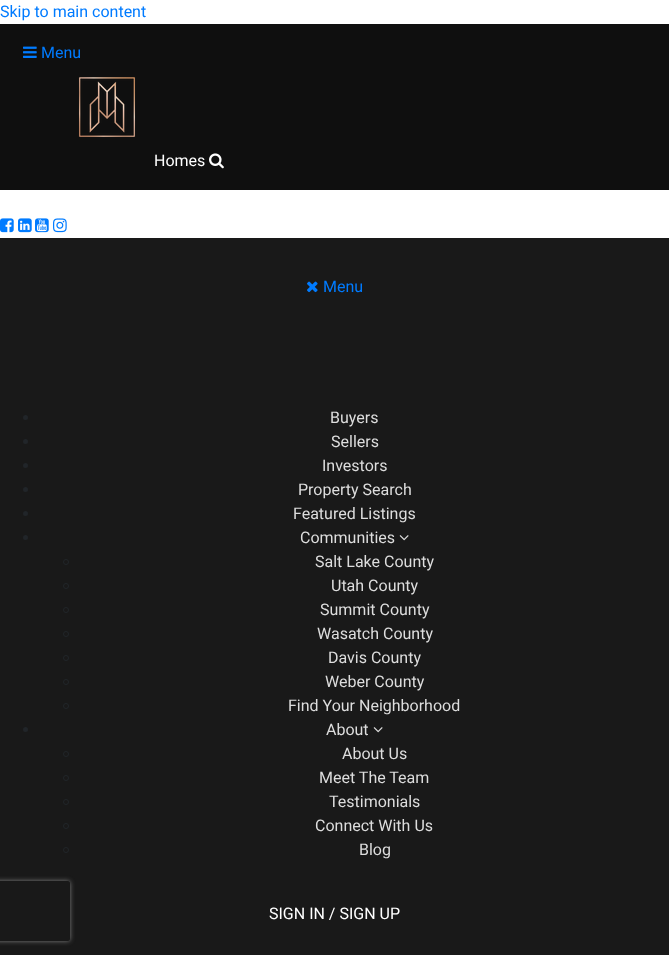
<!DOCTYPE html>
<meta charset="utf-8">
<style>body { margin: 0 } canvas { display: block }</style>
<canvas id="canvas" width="669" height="955"></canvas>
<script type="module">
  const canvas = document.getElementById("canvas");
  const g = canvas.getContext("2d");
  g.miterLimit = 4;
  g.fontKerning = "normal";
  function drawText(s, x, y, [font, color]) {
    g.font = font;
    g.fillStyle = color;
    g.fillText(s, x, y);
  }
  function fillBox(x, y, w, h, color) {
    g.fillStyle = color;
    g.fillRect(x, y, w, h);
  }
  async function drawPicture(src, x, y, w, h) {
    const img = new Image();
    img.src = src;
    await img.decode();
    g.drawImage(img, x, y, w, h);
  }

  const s1 = ["16px Roboto", "#007BFF"];
  const s2 = ["16px Roboto", "#FFFFFF"];
  const s3 = ["16px Roboto", "#DDDDDD"];

  fillBox(0, 0, 669, 955, "#FFFFFF");
  drawText("Skip to main content", 0, 17, s1);
  fillBox(0, 238, 669, 717, "#191919");
  g.save();
  g.beginPath();
  g.moveTo(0, 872);
  g.lineTo(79, 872);
  g.lineTo(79, 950);
  g.lineTo(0, 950);
  g.closePath();
  g.moveTo(-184, 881);
  g.lineTo(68, 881);
  g.bezierCurveTo(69, 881, 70, 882, 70, 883);
  g.lineTo(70, 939);
  g.bezierCurveTo(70, 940, 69, 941, 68, 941);
  g.lineTo(-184, 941);
  g.bezierCurveTo(-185, 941, -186, 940, -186, 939);
  g.lineTo(-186, 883);
  g.bezierCurveTo(-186, 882, -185, 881, -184, 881);
  g.closePath();
  g.clip("evenodd");
  g.fillStyle = "#808080";
  g.filter = "blur(2.5px)";
  g.beginPath();
  g.roundRect(-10, 881, 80, 60, 2);
  g.fill();
  g.filter = "none";
  g.restore();
  fillBox(0, 24, 669, 166, "#0F0F0F");
  await drawPicture("pic1.png", 23, 46, 14, 12);
  drawText("Menu", 41, 58, s1);
  await drawPicture("pic2.png", 78, 77, 58, 60);
  drawText("Homes", 154, 166, s2);
  await drawPicture("pic3.png", 209, 153, 15, 16);
  await drawPicture("pic4.png", 0, 218, 14, 15);
  await drawPicture("pic5.png", 18, 218, 14, 15);
  await drawPicture("pic6.png", 35, 218, 14, 15);
  await drawPicture("pic7.png", 53, 218, 14, 15);
  await drawPicture("pic8.png", 307, 281, 11, 12);
  drawText("Menu", 323, 292, s1);
  g.fillStyle = "#212529";
  g.beginPath();
  g.arc(25.5, 417.5, 2.5, 0, Math.PI * 2);
  g.fill();
  drawText("Buyers", 330, 423, s3);
  g.fillStyle = "#212529";
  g.beginPath();
  g.arc(25.5, 441.5, 2.5, 0, Math.PI * 2);
  g.fill();
  drawText("Sellers", 331, 447, s3);
  g.fillStyle = "#212529";
  g.beginPath();
  g.arc(25.5, 465.5, 2.5, 0, Math.PI * 2);
  g.fill();
  drawText("Investors", 322, 471, s3);
  g.fillStyle = "#212529";
  g.beginPath();
  g.arc(25.5, 489.5, 2.5, 0, Math.PI * 2);
  g.fill();
  drawText("Property Search", 298, 495, s3);
  g.fillStyle = "#212529";
  g.beginPath();
  g.arc(25.5, 513.5, 2.5, 0, Math.PI * 2);
  g.fill();
  drawText("Featured Listings", 293, 519, s3);
  g.fillStyle = "#212529";
  g.beginPath();
  g.arc(25.5, 537.5, 2.5, 0, Math.PI * 2);
  g.fill();
  drawText("Communities", 300, 543, s3);
  await drawPicture("pic9.png", 399, 535, 10, 6);
  g.beginPath();
  g.arc(66, 562, 2.5, 0, Math.PI * 2);
  g.strokeStyle = "#212529";
  g.stroke();
  drawText("Salt Lake County", 315, 567, s3);
  g.beginPath();
  g.arc(66, 586, 2.5, 0, Math.PI * 2);
  g.stroke();
  drawText("Utah County", 331, 591, s3);
  g.beginPath();
  g.arc(66, 610, 2.5, 0, Math.PI * 2);
  g.stroke();
  drawText("Summit County", 320, 615, s3);
  g.beginPath();
  g.arc(66, 634, 2.5, 0, Math.PI * 2);
  g.stroke();
  drawText("Wasatch County", 317, 639, s3);
  g.beginPath();
  g.arc(66, 658, 2.5, 0, Math.PI * 2);
  g.stroke();
  drawText("Davis County", 328, 663, s3);
  g.beginPath();
  g.arc(66, 682, 2.5, 0, Math.PI * 2);
  g.stroke();
  drawText("Weber County", 325, 687, s3);
  g.beginPath();
  g.arc(66, 706, 2.5, 0, Math.PI * 2);
  g.stroke();
  drawText("Find Your Neighborhood", 288, 711, s3);
  g.fillStyle = "#212529";
  g.beginPath();
  g.arc(25.5, 729.5, 2.5, 0, Math.PI * 2);
  g.fill();
  drawText("About", 326, 735, s3);
  await drawPicture("pic9.png", 373, 727, 10, 6);
  g.beginPath();
  g.arc(66, 754, 2.5, 0, Math.PI * 2);
  g.stroke();
  drawText("About Us", 342, 759, s3);
  g.beginPath();
  g.arc(66, 778, 2.5, 0, Math.PI * 2);
  g.stroke();
  drawText("Meet The Team", 319, 783, s3);
  g.beginPath();
  g.arc(66, 802, 2.5, 0, Math.PI * 2);
  g.stroke();
  drawText("Testimonials", 329, 807, s3);
  g.beginPath();
  g.arc(66, 826, 2.5, 0, Math.PI * 2);
  g.stroke();
  drawText("Connect With Us", 315, 831, s3);
  g.beginPath();
  g.arc(66, 850, 2.5, 0, Math.PI * 2);
  g.stroke();
  drawText("Blog", 359, 855, s3);
  drawText("SIGN IN / SIGN UP", 269, 919, s2);
</script>
